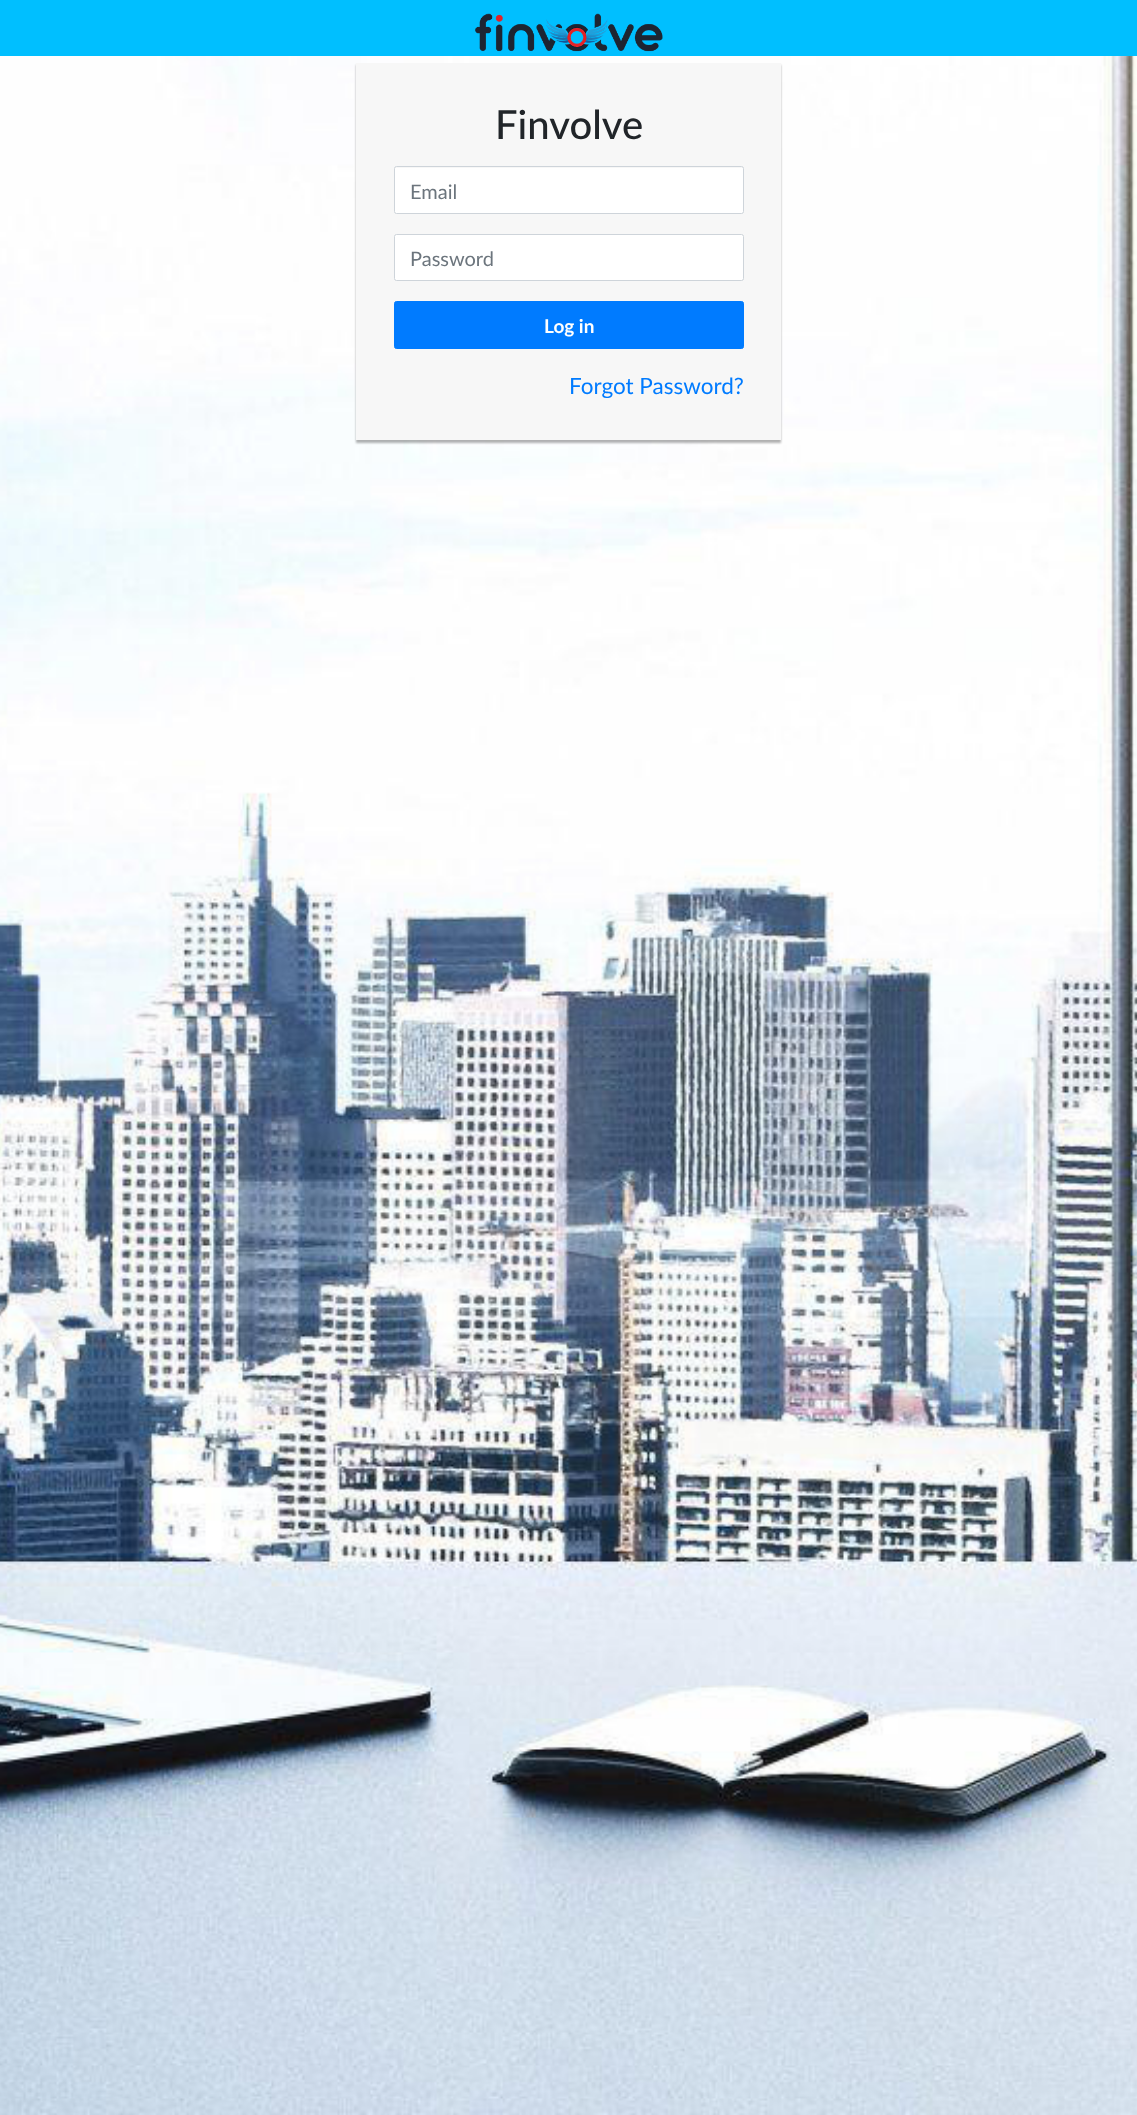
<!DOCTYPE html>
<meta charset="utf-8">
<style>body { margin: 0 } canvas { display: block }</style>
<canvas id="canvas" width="1137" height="2115"></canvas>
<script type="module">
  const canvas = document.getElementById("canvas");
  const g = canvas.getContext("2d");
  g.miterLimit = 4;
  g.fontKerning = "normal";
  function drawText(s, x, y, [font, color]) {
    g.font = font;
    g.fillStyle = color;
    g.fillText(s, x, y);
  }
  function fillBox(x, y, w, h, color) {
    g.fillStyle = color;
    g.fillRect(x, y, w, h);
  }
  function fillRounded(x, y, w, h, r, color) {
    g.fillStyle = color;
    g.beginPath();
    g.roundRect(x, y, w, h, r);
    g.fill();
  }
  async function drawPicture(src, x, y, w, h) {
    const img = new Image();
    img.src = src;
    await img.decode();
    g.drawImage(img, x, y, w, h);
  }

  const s1 = ["500 40px Lato", "#212529"];
  const s2 = ["20px Lato", "#6C757D"];
  const s3 = ["bold 19px Lato", "#FFFFFF"];
  const s4 = ["22.5px Lato", "#007BFF"];

  fillBox(0, 0, 1137, 2115, "#FFFFFF");
  await drawPicture("pic1.png", 0, 56, 1137, 2059);
  fillBox(0, 0, 1137, 56, "#00BFFF");
  await drawPicture("pic2.png", 475, 13, 188, 39);
  g.fillStyle = "rgba(0, 0, 0, 0.3)";
  g.filter = "blur(1px)";
  g.beginPath();
  g.rect(356, 65, 425, 378);
  g.fill();
  g.filter = "none";
  fillBox(356, 63, 425, 377, "#F7F7F7");
  drawText("Finvolve", 495, 139, s1);
  fillRounded(395, 168, 348, 45, 1, "#FFFFFF");
  g.beginPath();
  g.roundRect(394.5, 166.5, 349, 47, 2);
  g.strokeStyle = "#CED4DA";
  g.stroke();
  drawText("Email", 410, 199, s2);
  fillRounded(395, 235, 348, 45, 1, "#FFFFFF");
  g.beginPath();
  g.roundRect(394.5, 234.5, 349, 46, 2);
  g.stroke();
  drawText("Password", 410, 266, s2);
  g.fillStyle = "#007BFF";
  g.beginPath();
  g.roundRect(394.5, 301.5, 349, 47, 2);
  g.fill();
  g.strokeStyle = "#007BFF";
  g.stroke();
  drawText("Log in", 544, 333, s3);
  drawText("Forgot Password?", 569, 394, s4);
</script>
